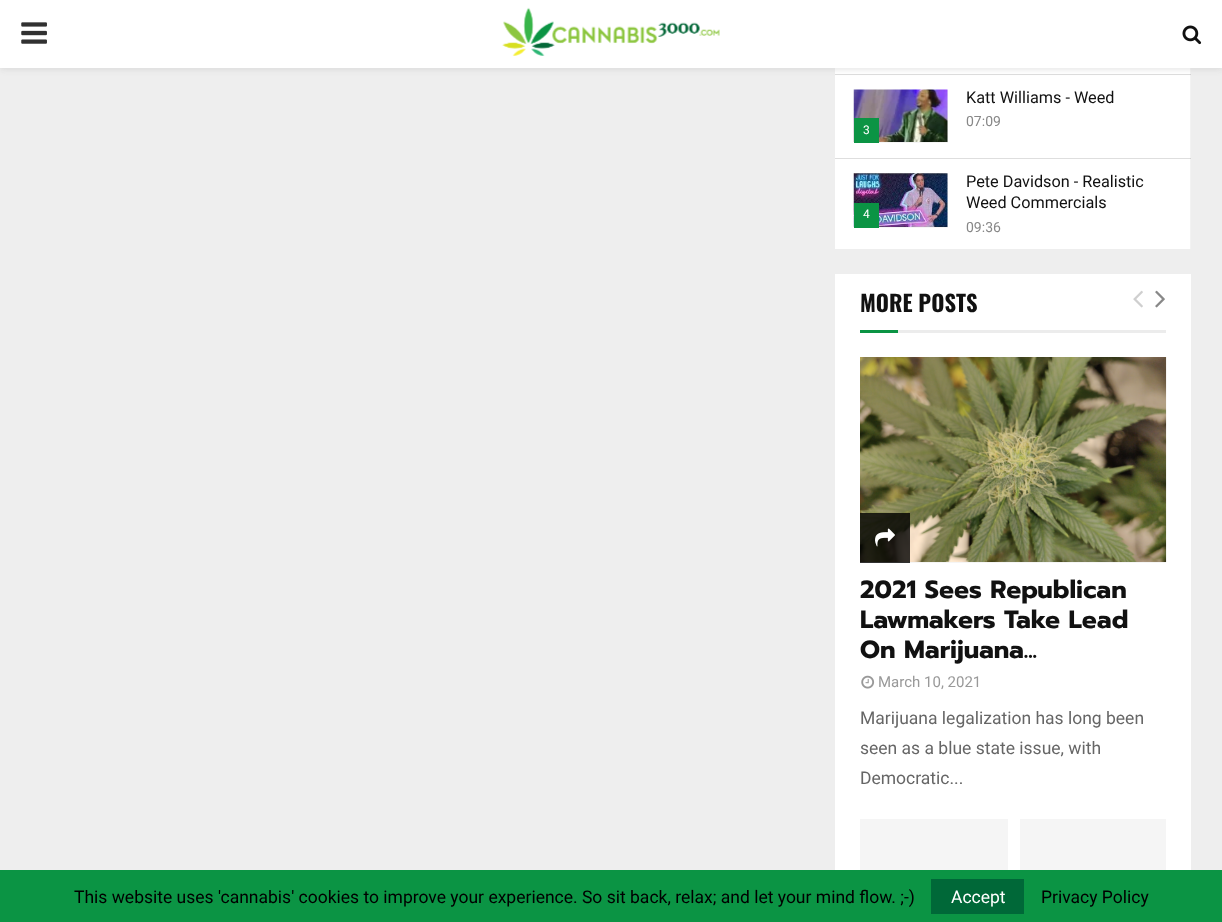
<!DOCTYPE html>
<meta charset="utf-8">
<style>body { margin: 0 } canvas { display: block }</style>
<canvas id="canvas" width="1222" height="922"></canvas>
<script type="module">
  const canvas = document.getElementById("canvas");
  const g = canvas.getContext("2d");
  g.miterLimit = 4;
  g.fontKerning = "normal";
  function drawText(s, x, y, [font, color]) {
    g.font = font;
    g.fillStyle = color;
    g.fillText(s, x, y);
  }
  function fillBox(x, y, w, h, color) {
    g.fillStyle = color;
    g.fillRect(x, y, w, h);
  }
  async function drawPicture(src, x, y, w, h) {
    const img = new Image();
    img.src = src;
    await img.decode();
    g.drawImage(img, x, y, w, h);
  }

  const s1 = ["16.25px Roboto", "#111111"];
  const s2 = ["14px Roboto", "#888888"];
  const s3 = ["12px Roboto", "#FFFFFF"];
  const s4 = ["bold 22.5px Oswald", "#111111"];
  const s5 = ["bold 25px Prompt", "#111111"];
  const s6 = ["15px Roboto", "#999999"];
  const s7 = ["17.5px Roboto", "#666666"];
  const s8 = ["17.5px Roboto", "#000000"];
  const s9 = ["17.5px Roboto", "#FFFFFF"];

  fillBox(0, 0, 1222, 922, "#EEEEEE");
  fillBox(835, 68, 355, 181, "#FFFFFF");
  fillBox(1190, 68, 1, 181, "#F2F2F2");
  fillBox(835, 74, 356, 1, "#DEDEDE");
  fillBox(1190, 74, 1, 1, "#D3D3D3");
  g.fillStyle = "rgba(190, 190, 190, 0.46)";
  g.filter = "blur(3px)";
  g.beginPath();
  g.rect(0, 1, 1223, 68);
  g.fill();
  g.filter = "none";
  fillBox(0, 0, 1222, 68, "#FFFFFF");
  await drawPicture("pic1.png", 21, 22, 26, 22);
  await drawPicture("pic2.png", 502, 7, 218, 49);
  await drawPicture("pic3.png", 1182, 25, 20, 20);
  fillBox(835, 158, 356, 1, "#DEDEDE");
  fillBox(1190, 158, 1, 1, "#D3D3D3");
  drawText("Katt Williams - Weed", 966, 103, s1);
  drawText("07:09", 966, 126, s2);
  fillBox(879, 90, 69, 53, "#F5F5F5");
  await drawPicture("pic4.png", 853, 89, 95, 53);
  fillBox(854, 118, 25, 25, "#0B9444");
  drawText("3", 863, 134, s3);
  fillBox(879, 174, 69, 54, "#F5F5F5");
  await drawPicture("pic5.png", 853, 173, 95, 54);
  fillBox(854, 203, 25, 25, "#0B9444");
  drawText("4", 863, 218, s3);
  drawText("Pete Davidson - Realistic", 966, 187, s1);
  drawText("Weed Commercials", 966, 208, s1);
  drawText("09:36", 966, 232, s2);
  fillBox(835, 274, 356, 596, "#FFFFFF");
  fillBox(898, 330, 268, 3, "#ECECEC");
  drawText("MORE POSTS", 860, 312, s4);
  await drawPicture("pic6.png", 1133, 290, 10, 18);
  await drawPicture("pic7.png", 1155, 290, 10, 18);
  fillBox(860, 330, 38, 3, "#0B9444");
  fillBox(860, 562, 306, 1, "#F5F5F5");
  await drawPicture("pic8.png", 860, 357, 307, 205);
  fillBox(860, 513, 50, 50, "rgba(0, 0, 0, 0.8)");
  await drawPicture("pic9.png", 875, 528, 20, 19);
  drawText("2021 Sees Republican", 860, 598, s5);
  drawText("Lawmakers Take Lead", 860, 628, s5);
  drawText("On Marijuana...", 860, 658, s5);
  await drawPicture("pic10.png", 861, 675, 14, 14);
  drawText("March 10, 2021", 878, 687, s6);
  drawText("Marijuana legalization has long been", 860, 724, s7);
  drawText("seen as a blue state issue, with", 860, 754, s7);
  drawText("Democratic...", 860, 784, s7);
  fillBox(860, 819, 148, 51, "#F5F5F5");
  fillBox(1020, 819, 146, 51, "#F5F5F5");
  fillBox(0, 870, 1222, 52, "#0B9444");
  drawText("This website uses 'cannabis' cookies to improve your experience. So sit back, relax; and let your mind flow. ;-)", 74, 903, s8);
  fillBox(931, 879, 93, 35, "#006838");
  drawText("Accept", 951, 903, s9);
  drawText("Privacy Policy", 1041, 903, s8);
</script>
